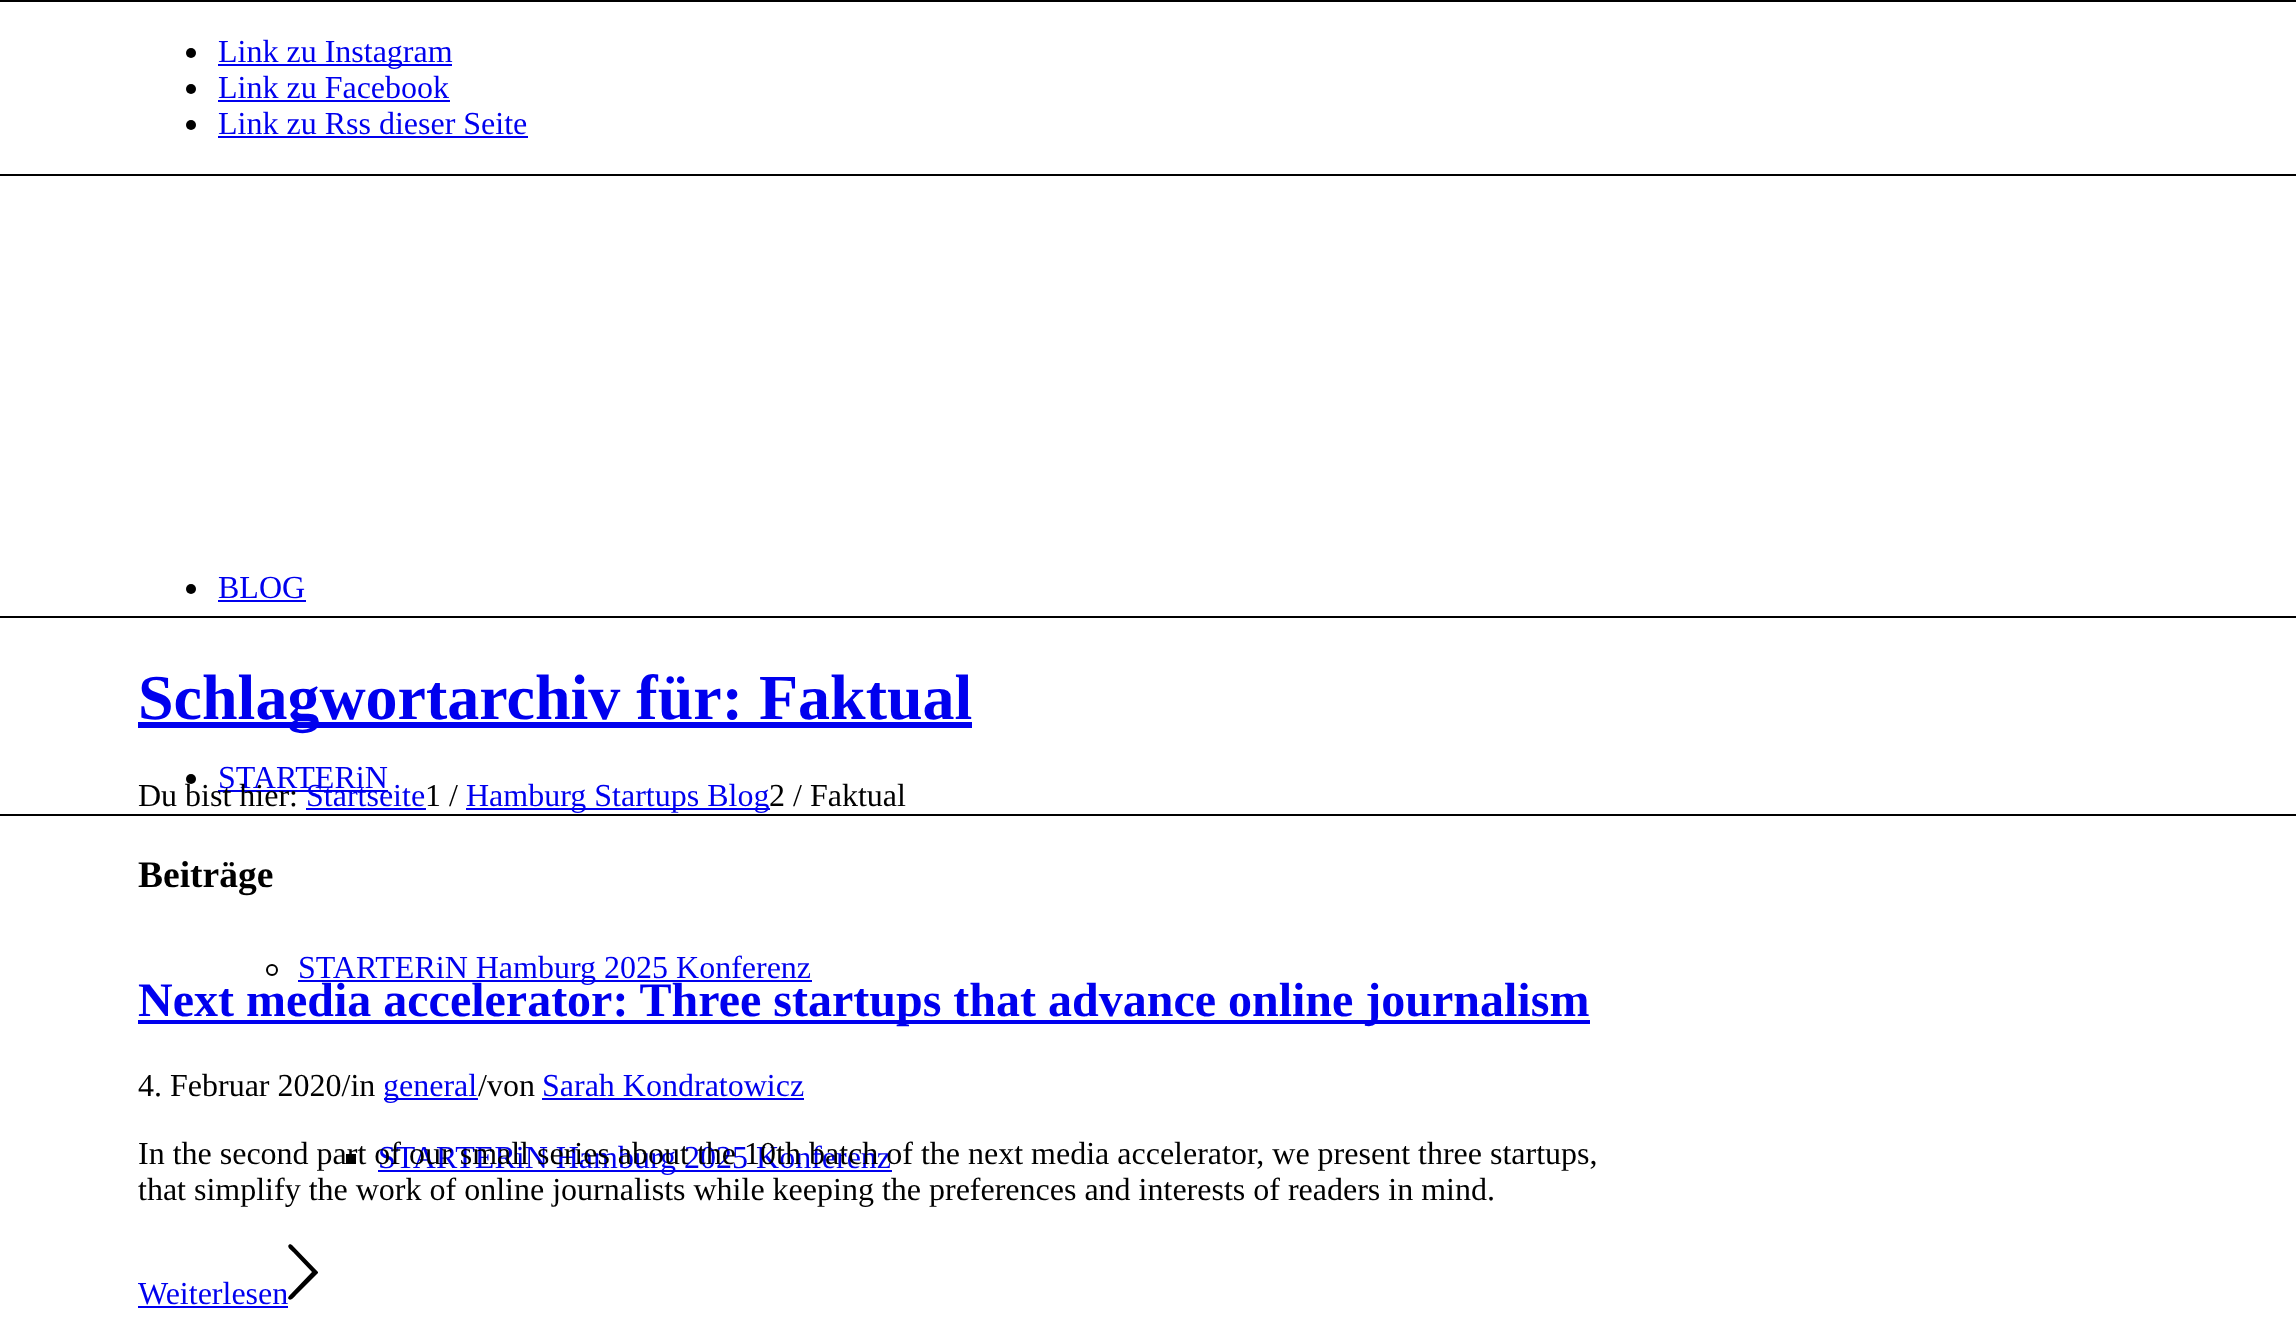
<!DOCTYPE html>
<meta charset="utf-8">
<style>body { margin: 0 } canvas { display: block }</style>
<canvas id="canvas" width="2296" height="1340"></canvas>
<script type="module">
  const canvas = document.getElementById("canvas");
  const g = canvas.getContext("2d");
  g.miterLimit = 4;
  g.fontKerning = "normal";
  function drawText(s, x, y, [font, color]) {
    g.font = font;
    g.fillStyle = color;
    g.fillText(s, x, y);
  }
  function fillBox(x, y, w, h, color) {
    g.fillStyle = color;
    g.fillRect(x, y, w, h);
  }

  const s1 = ["32px Liberation Serif", "#0000EE"];
  const s2 = ["bold 64px Liberation Serif", "#0000EE"];
  const s3 = ["32px Liberation Serif", "#000000"];
  const s4 = ["bold 37.5px Liberation Serif", "#000000"];
  const s5 = ["bold 48px Liberation Serif", "#0000EE"];

  fillBox(0, 0, 2296, 1340, "#FFFFFF");
  fillBox(0, 0, 2296, 2, "#000000");
  g.beginPath();
  g.arc(191, 53, 5, 0, Math.PI * 2);
  g.fill();
  fillBox(218, 64, 234, 2, "#0000EE");
  drawText("Link zu Instagram", 218, 62, s1);
  g.fillStyle = "#000000";
  g.beginPath();
  g.arc(191, 89, 5, 0, Math.PI * 2);
  g.fill();
  drawText("Link zu Facebook", 218, 98, s1);
  fillBox(218, 100, 232, 2, "#0000EE");
  g.fillStyle = "#000000";
  g.beginPath();
  g.arc(191, 125, 5, 0, Math.PI * 2);
  g.fill();
  drawText("Link zu Rss dieser Seite", 218, 134, s1);
  fillBox(218, 136, 310, 2, "#0000EE");
  fillBox(0, 174, 2296, 2, "#000000");
  g.beginPath();
  g.arc(191, 589, 5, 0, Math.PI * 2);
  g.fill();
  drawText("BLOG", 218, 598, s1);
  fillBox(218, 600, 88, 2, "#0000EE");
  g.fillStyle = "#000000";
  g.beginPath();
  g.arc(191, 779, 5, 0, Math.PI * 2);
  g.fill();
  drawText("STARTERiN", 218, 788, s1);
  fillBox(218, 790, 170, 2, "#0000EE");
  g.beginPath();
  g.arc(272, 970, 5, 0, Math.PI * 2);
  g.strokeStyle = "#000000";
  g.lineWidth = 2;
  g.stroke();
  fillBox(298, 980, 514, 2, "#0000EE");
  drawText("STARTERiN Hamburg 2025 Konferenz", 298, 978, s1);
  fillBox(346, 1154, 10, 10, "#000000");
  fillBox(378, 1170, 514, 2, "#0000EE");
  drawText("STARTERiN Hamburg 2025 Konferenz", 378, 1168, s1);
  fillBox(0, 616, 2296, 2, "#000000");
  fillBox(138, 722, 834, 6, "#0000EE");
  drawText("Schlagwortarchiv für: Faktual", 138, 719, s2);
  drawText("Du bist hier:", 138, 806, s3);
  drawText("Startseite", 306, 806, s1);
  fillBox(306, 808, 120, 2, "#0000EE");
  drawText("1 /", 425, 806, s3);
  fillBox(466, 808, 304, 2, "#0000EE");
  drawText("Hamburg Startups Blog", 466, 806, s1);
  drawText("2 / Faktual", 769, 806, s3);
  fillBox(0, 814, 2296, 2, "#000000");
  drawText("Beiträge", 138, 887, s4);
  fillBox(138, 1020, 1452, 4, "#0000EE");
  drawText("Next media accelerator: Three startups that advance online journalism", 138, 1016, s5);
  drawText("4. Februar 2020/in", 138, 1096, s3);
  fillBox(384, 1098, 94, 2, "#0000EE");
  drawText("general", 383, 1096, s1);
  drawText("/von", 478, 1096, s3);
  drawText("Sarah Kondratowicz", 542, 1096, s1);
  fillBox(542, 1098, 262, 2, "#0000EE");
  drawText("In the second part of our small series about the 10th batch of the next media accelerator, we present three startups,", 138, 1164, s3);
  drawText("that simplify the work of online journalists while keeping the preferences and interests of readers in mind.", 138, 1200, s3);
  drawText("Weiterlesen", 138, 1304, s1);
  fillBox(138, 1306, 150, 2, "#0000EE");
  g.fillStyle = "#000000";
  g.beginPath();
  g.moveTo(289, 1296);
  g.lineTo(312, 1272);
  g.lineTo(293, 1252);
  g.bezierCurveTo(292, 1251, 285, 1246, 290, 1244);
  g.lineTo(292, 1245);
  g.lineTo(318, 1272);
  g.lineTo(318, 1273);
  g.lineTo(296, 1295);
  g.bezierCurveTo(296, 1295, 290, 1303, 288, 1298);
  g.closePath();
  g.fill();
</script>
